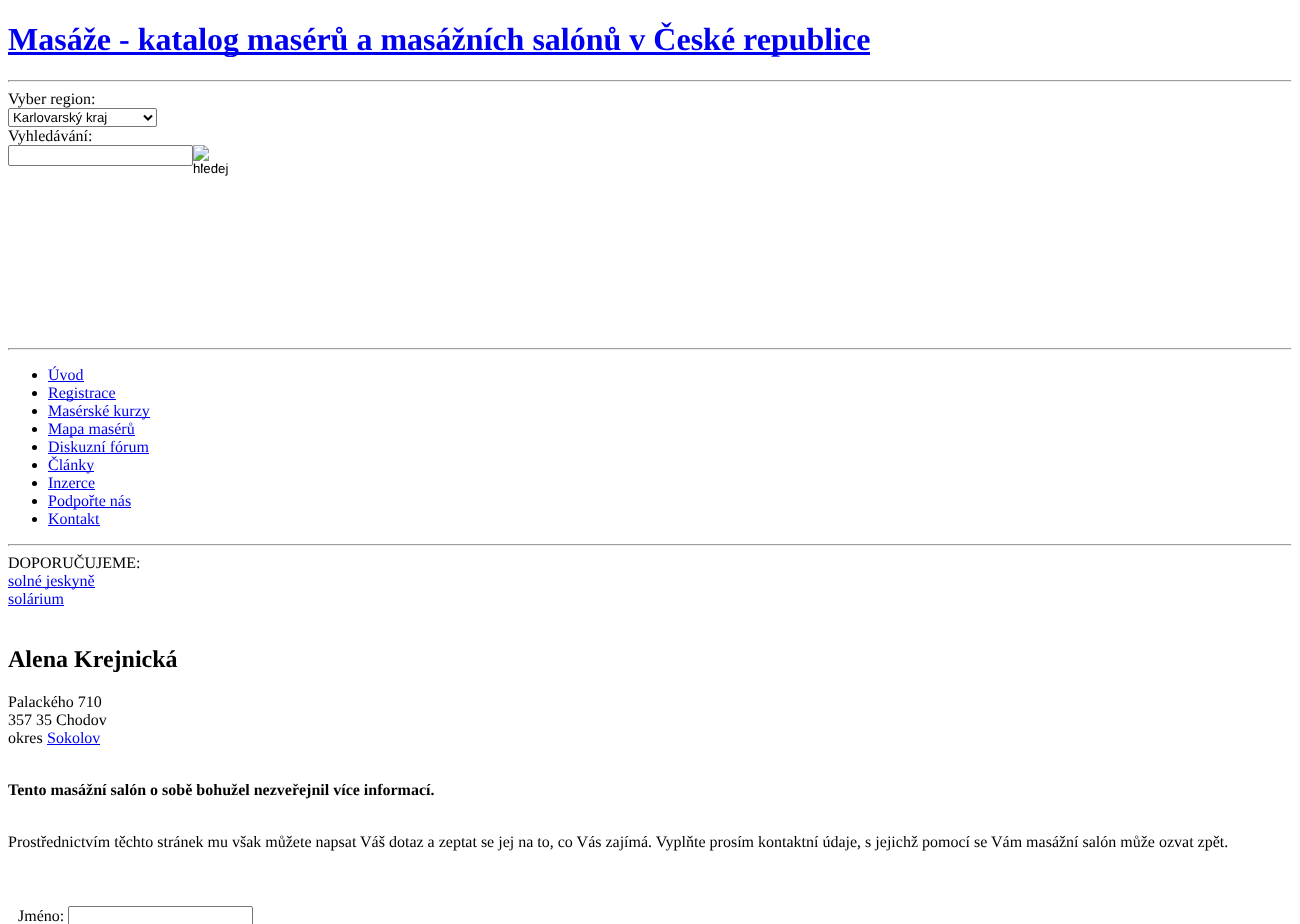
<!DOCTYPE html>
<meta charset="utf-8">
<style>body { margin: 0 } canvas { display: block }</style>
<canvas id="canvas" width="1300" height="924"></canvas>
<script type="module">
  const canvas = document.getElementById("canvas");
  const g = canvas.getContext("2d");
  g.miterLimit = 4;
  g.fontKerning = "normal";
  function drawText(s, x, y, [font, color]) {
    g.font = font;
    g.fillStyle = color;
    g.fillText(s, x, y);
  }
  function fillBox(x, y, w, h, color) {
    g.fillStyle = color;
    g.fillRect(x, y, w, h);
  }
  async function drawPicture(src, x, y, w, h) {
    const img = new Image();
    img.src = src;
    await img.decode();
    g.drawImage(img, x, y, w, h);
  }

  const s1 = ["bold 32px Liberation Serif", "#0000EE"];
  const s2 = ["16px Liberation Serif", "#000000"];
  const s3 = ["13.25px Liberation Sans", "#000000"];
  const s4 = ["16px Liberation Serif", "#0000EE"];
  const s5 = ["bold 24px Liberation Serif", "#000000"];
  const s6 = ["bold 16px Liberation Serif", "#000000"];

  fillBox(0, 0, 1300, 924, "#FFFFFF");
  fillBox(8, 52, 862, 3, "#0000EE");
  drawText("Masáže - katalog masérů a masážních salónů v České republice", 8, 50, s1);
  fillBox(8, 80, 1284, 1, "#9F9F9F");
  fillBox(1291, 80, 1, 2, "#EEEEEE");
  fillBox(8, 81, 1284, 1, "#EEEEEE");
  fillBox(8, 80, 1, 2, "#9F9F9F");
  drawText("Vyber region:", 8, 104, s2);
  g.beginPath();
  g.roundRect(8.5, 108.5, 148, 18, 1.5);
  g.strokeStyle = "#767676";
  g.stroke();
  g.beginPath();
  g.moveTo(144, 115.5);
  g.lineTo(148, 119.5);
  g.lineTo(152, 115.5);
  g.strokeStyle = "#000000";
  g.lineWidth = 2;
  g.stroke();
  drawText("Karlovarský kraj", 13, 122, s3);
  drawText("Vyhledávání:", 8, 141, s2);
  g.beginPath();
  g.roundRect(8.5, 145.5, 184, 20, 1.5);
  g.strokeStyle = "#767676";
  g.lineWidth = 1;
  g.stroke();
  await drawPicture("pic1.png", 193, 145, 30, 22);
  drawText("hledej", 193, 173, s3);
  fillBox(8, 348, 1284, 1, "#9F9F9F");
  fillBox(1291, 348, 1, 2, "#EEEEEE");
  fillBox(8, 349, 1284, 1, "#EEEEEE");
  fillBox(8, 348, 1, 2, "#9F9F9F");
  g.fillStyle = "#000000";
  g.beginPath();
  g.arc(34.5, 375.5, 2.5, 0, Math.PI * 2);
  g.fill();
  drawText("Úvod", 48, 380, s4);
  fillBox(48, 381, 36, 1, "#0000EE");
  g.fillStyle = "#000000";
  g.beginPath();
  g.arc(34.5, 393.5, 2.5, 0, Math.PI * 2);
  g.fill();
  fillBox(48, 399, 68, 1, "#0000EE");
  drawText("Registrace", 48, 398, s4);
  g.fillStyle = "#000000";
  g.beginPath();
  g.arc(34.5, 411.5, 2.5, 0, Math.PI * 2);
  g.fill();
  fillBox(48, 417, 102, 1, "#0000EE");
  drawText("Masérské kurzy", 48, 416, s4);
  g.fillStyle = "#000000";
  g.beginPath();
  g.arc(34.5, 429.5, 2.5, 0, Math.PI * 2);
  g.fill();
  fillBox(48, 435, 87, 1, "#0000EE");
  drawText("Mapa masérů", 48, 434, s4);
  g.fillStyle = "#000000";
  g.beginPath();
  g.arc(34.5, 447.5, 2.5, 0, Math.PI * 2);
  g.fill();
  drawText("Diskuzní fórum", 48, 452, s4);
  fillBox(48, 453, 101, 1, "#0000EE");
  g.fillStyle = "#000000";
  g.beginPath();
  g.arc(34.5, 465.5, 2.5, 0, Math.PI * 2);
  g.fill();
  fillBox(48, 471, 46, 1, "#0000EE");
  drawText("Články", 48, 470, s4);
  g.fillStyle = "#000000";
  g.beginPath();
  g.arc(34.5, 483.5, 2.5, 0, Math.PI * 2);
  g.fill();
  drawText("Inzerce", 48, 488, s4);
  fillBox(48, 489, 47, 1, "#0000EE");
  g.fillStyle = "#000000";
  g.beginPath();
  g.arc(34.5, 501.5, 2.5, 0, Math.PI * 2);
  g.fill();
  fillBox(48, 507, 83, 1, "#0000EE");
  drawText("Podpořte nás", 48, 506, s4);
  g.fillStyle = "#000000";
  g.beginPath();
  g.arc(34.5, 519.5, 2.5, 0, Math.PI * 2);
  g.fill();
  drawText("Kontakt", 48, 524, s4);
  fillBox(48, 525, 52, 1, "#0000EE");
  fillBox(8, 544, 1284, 1, "#9F9F9F");
  fillBox(1291, 544, 1, 2, "#EEEEEE");
  fillBox(8, 545, 1284, 1, "#EEEEEE");
  fillBox(8, 544, 1, 2, "#9F9F9F");
  drawText("DOPORUČUJEME:", 8, 568, s2);
  fillBox(8, 587, 87, 1, "#0000EE");
  drawText("solné jeskyně", 8, 586, s4);
  drawText("solárium", 8, 604, s4);
  fillBox(8, 605, 56, 1, "#0000EE");
  drawText("Alena Krejnická", 8, 667, s5);
  drawText("Palackého 710", 8, 707, s2);
  drawText("357 35 Chodov", 8, 725, s2);
  drawText("okres", 8, 743, s2);
  drawText("Sokolov", 47, 743, s4);
  fillBox(47, 744, 53, 1, "#0000EE");
  drawText("Tento masážní salón o sobě bohužel nezveřejnil více informací.", 8, 795, s6);
  drawText("Prostřednictvím těchto stránek mu však můžete napsat Váš dotaz a zeptat se jej na to, co Vás zajímá. Vyplňte prosím kontaktní údaje, s jejichž pomocí se Vám masážní salón může ozvat zpět.", 8, 847, s2);
  drawText("Jméno:", 18, 921, s2);
  g.beginPath();
  g.roundRect(68.5, 906.5, 184, 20, 1.5);
  g.stroke();
</script>
